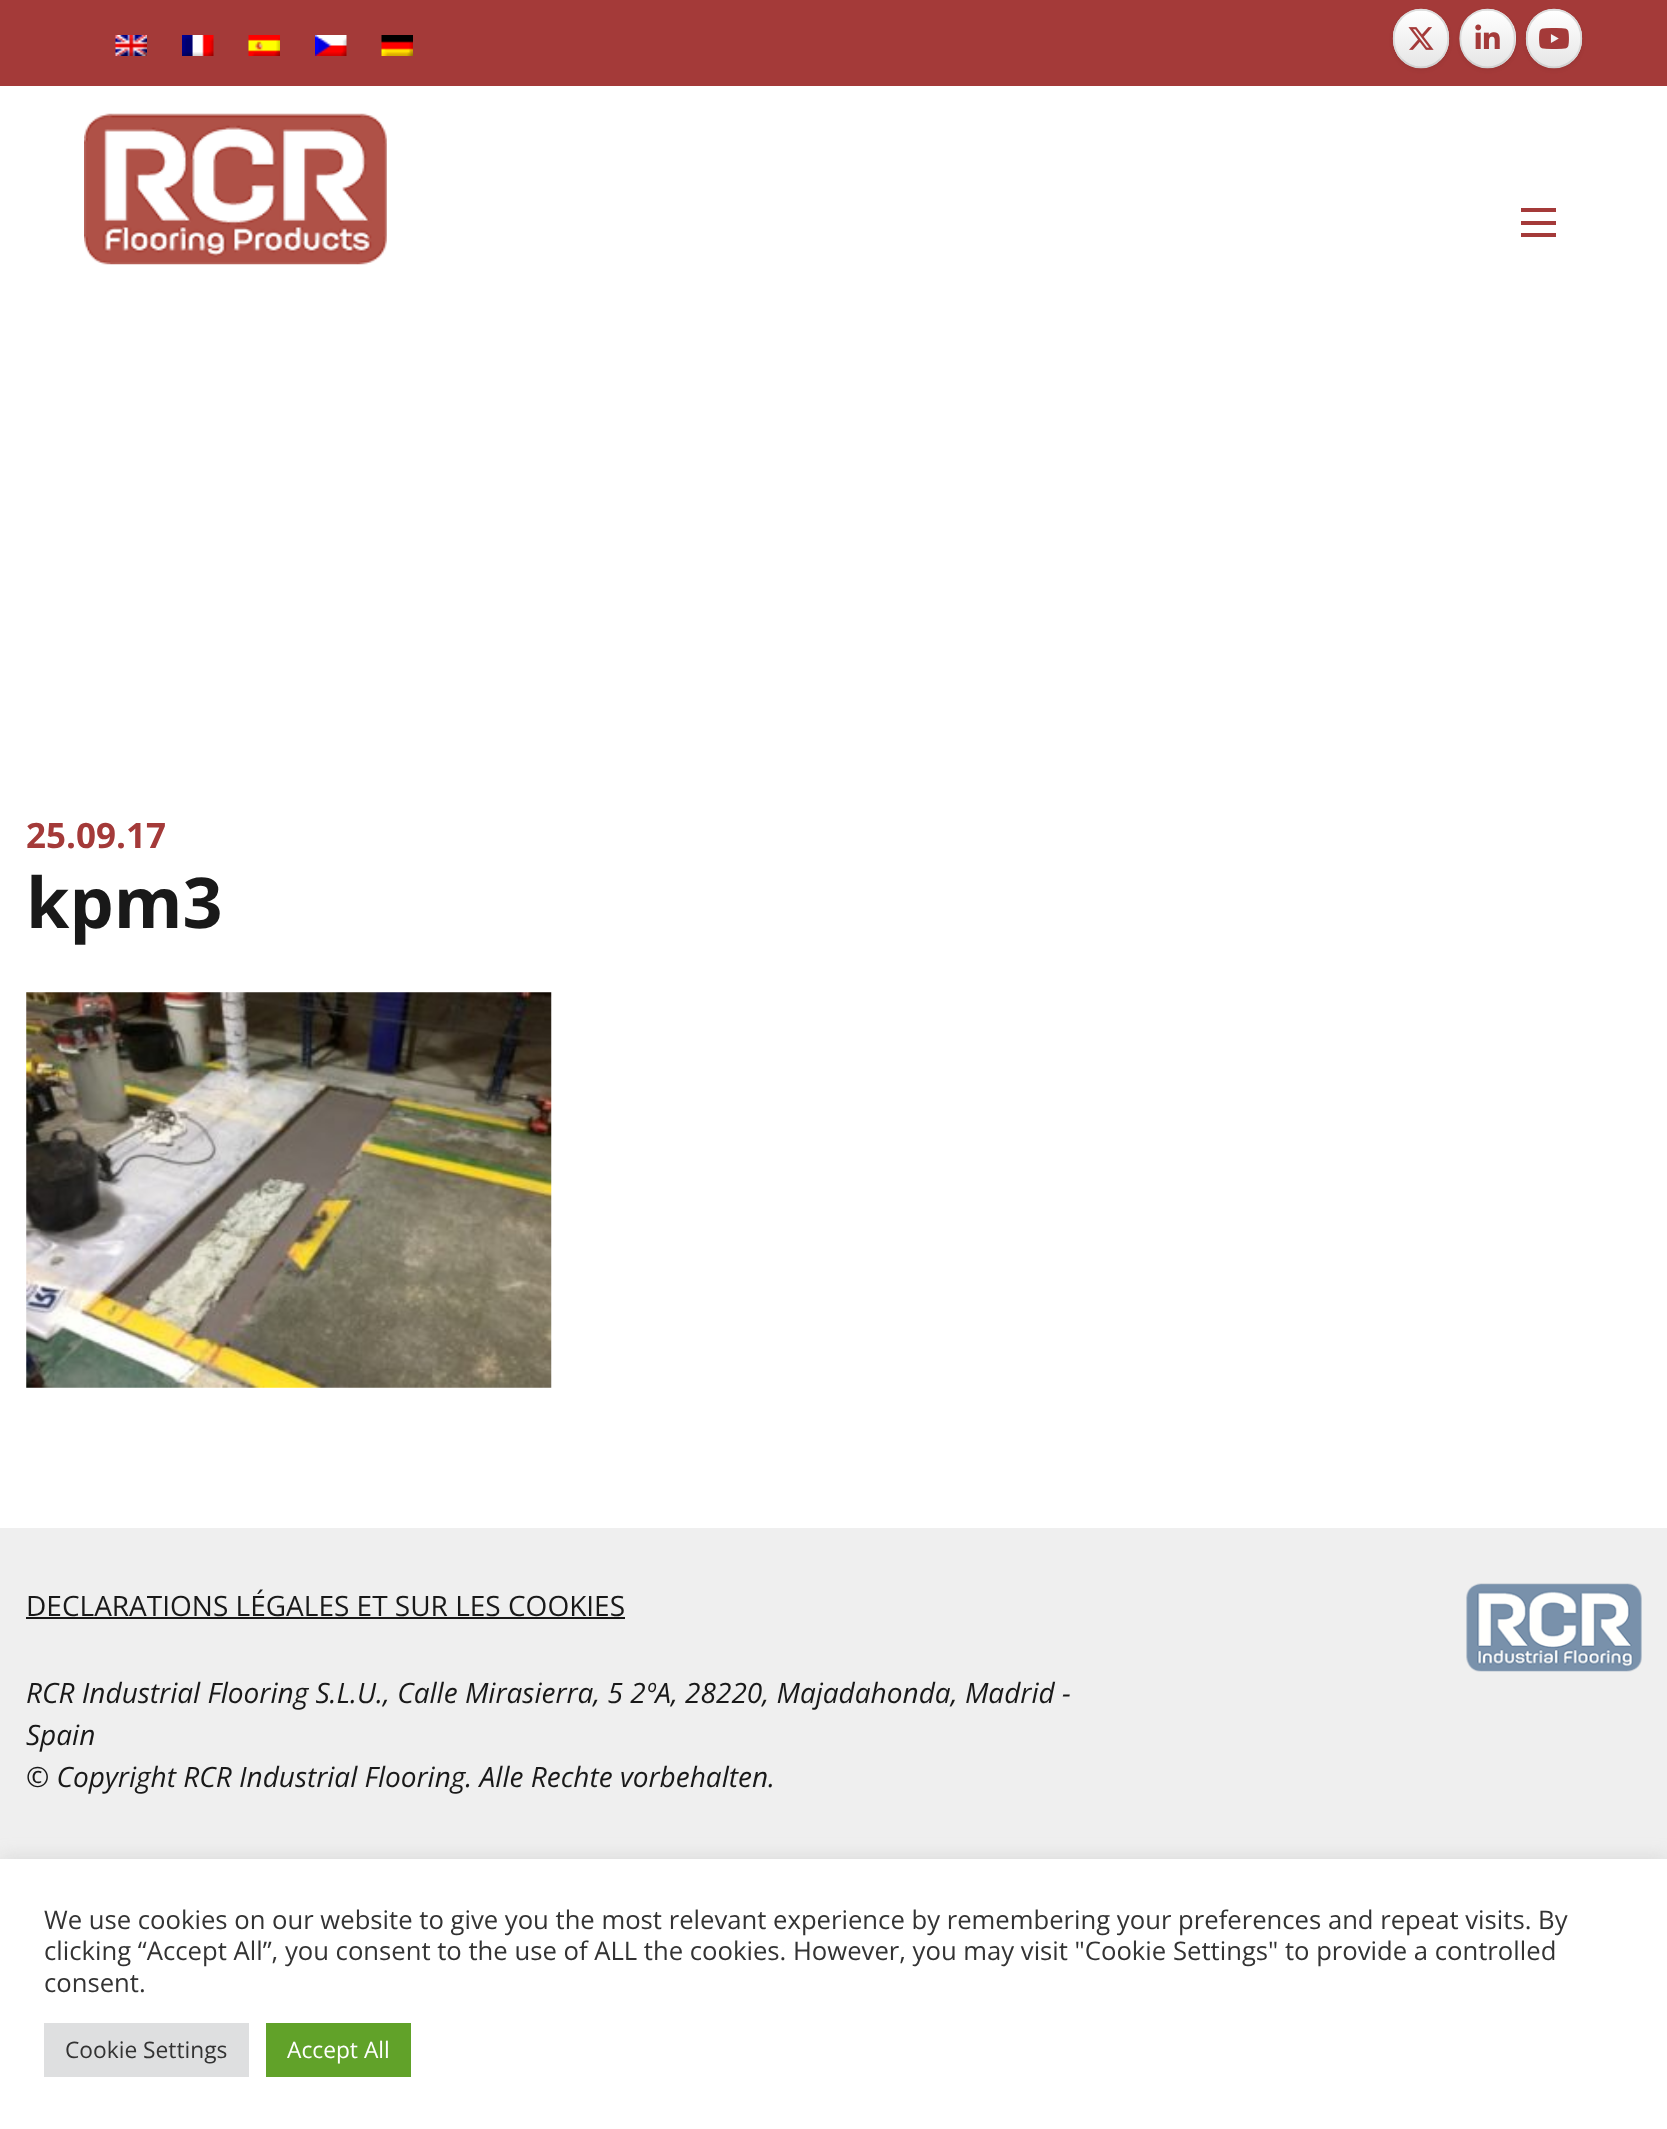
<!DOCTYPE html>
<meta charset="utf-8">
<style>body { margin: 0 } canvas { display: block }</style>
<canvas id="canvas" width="1667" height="2129"></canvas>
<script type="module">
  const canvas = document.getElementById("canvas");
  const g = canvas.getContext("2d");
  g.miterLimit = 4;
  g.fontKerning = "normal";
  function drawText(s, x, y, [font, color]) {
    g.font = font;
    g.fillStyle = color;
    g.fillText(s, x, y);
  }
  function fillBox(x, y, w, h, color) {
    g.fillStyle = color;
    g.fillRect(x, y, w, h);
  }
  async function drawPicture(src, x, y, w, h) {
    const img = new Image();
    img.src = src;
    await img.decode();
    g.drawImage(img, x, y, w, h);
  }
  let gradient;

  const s1 = ["bold 35px Open Sans", "#A43A39"];
  const s2 = ["bold 70px Open Sans", "#191919"];
  const s3 = ["28px Open Sans", "#191919"];
  const s4 = ["italic 28px Open Sans", "#191919"];
  const s5 = ["25.67px Open Sans", "#333333"];
  const s6 = ["22.75px Open Sans", "#333333"];
  const s7 = ["22.75px Open Sans", "#FFFFFF"];

  fillBox(0, 0, 1667, 2129, "#FFFFFF");
  fillBox(0, 0, 1667, 86, "#A43A39");
  await drawPicture("pic1.png", 115, 35, 32, 21);
  await drawPicture("pic2.png", 182, 35, 32, 21);
  await drawPicture("pic3.png", 248, 35, 32, 21);
  await drawPicture("pic4.png", 315, 35, 32, 21);
  await drawPicture("pic5.png", 381, 35, 32, 21);
  g.fillStyle = "rgba(0, 0, 0, 0.07)";
  g.filter = "blur(2px)";
  g.beginPath();
  g.roundRect(1393, 11, 56, 59, 28);
  g.fill();
  g.filter = "none";
  g.save();
  g.beginPath();
  g.roundRect(1393, 9, 56, 59, 28);
  g.clip();
  gradient = g.createLinearGradient(1395, 11, 1395, -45);
  gradient.addColorStop(0, "#E6E6E6");
  gradient.addColorStop(1, "#FFFFFF");
  g.fillStyle = gradient;
  g.fillRect(1410, 9, 22, 2);
  gradient = g.createLinearGradient(1395, 67, 1395, 11);
  gradient.addColorStop(0, "#E6E6E6");
  gradient.addColorStop(1, "#FFFFFF");
  g.fillStyle = gradient;
  g.fillRect(1393, 11, 56, 56);
  g.restore();
  g.beginPath();
  g.moveTo(1402, 17.5);
  g.bezierCurveTo(1412.5, 7, 1429.5, 7, 1440, 17.5);
  g.strokeStyle = "#DEDEDE";
  g.lineWidth = 1.8;
  g.stroke();
  g.beginPath();
  g.moveTo(1440, 17.5);
  g.bezierCurveTo(1451, 28.5, 1451, 48.5, 1440, 59.5);
  g.strokeStyle = "#D9D9D9";
  g.stroke();
  g.beginPath();
  g.moveTo(1440, 59.5);
  g.bezierCurveTo(1429.5, 70, 1412.5, 70, 1402, 59.5);
  g.strokeStyle = "#D1D1D1";
  g.stroke();
  g.beginPath();
  g.moveTo(1402, 59.5);
  g.bezierCurveTo(1391, 48.5, 1391, 28.5, 1402, 17.5);
  g.strokeStyle = "#D9D9D9";
  g.stroke();
  await drawPicture("pic6.png", 1408, 27, 26, 23);
  g.filter = "blur(2px)";
  g.beginPath();
  g.roundRect(1460, 11, 56, 59, 28);
  g.fill();
  g.filter = "none";
  g.save();
  g.beginPath();
  g.roundRect(1460, 9, 56, 59, 28);
  g.clip();
  gradient = g.createLinearGradient(1461, 11, 1461, -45);
  gradient.addColorStop(0, "#E6E6E6");
  gradient.addColorStop(1, "#FFFFFF");
  g.fillStyle = gradient;
  g.fillRect(1477, 9, 22, 2);
  gradient = g.createLinearGradient(1461, 67, 1461, 11);
  gradient.addColorStop(0, "#E6E6E6");
  gradient.addColorStop(1, "#FFFFFF");
  g.fillStyle = gradient;
  g.fillRect(1460, 11, 56, 56);
  g.restore();
  g.beginPath();
  g.moveTo(1468.5, 17.5);
  g.bezierCurveTo(1479, 7, 1496, 7, 1506.5, 17.5);
  g.strokeStyle = "#DEDEDE";
  g.stroke();
  g.beginPath();
  g.moveTo(1506.5, 17.5);
  g.bezierCurveTo(1517.5, 28.5, 1517.5, 48.5, 1506.5, 59.5);
  g.strokeStyle = "#D9D9D9";
  g.stroke();
  g.beginPath();
  g.moveTo(1506.5, 59.5);
  g.bezierCurveTo(1496, 70, 1479, 70, 1468.5, 59.5);
  g.strokeStyle = "#D1D1D1";
  g.stroke();
  g.beginPath();
  g.moveTo(1468.5, 59.5);
  g.bezierCurveTo(1457.5, 48.5, 1457.5, 28.5, 1468.5, 17.5);
  g.strokeStyle = "#D9D9D9";
  g.stroke();
  await drawPicture("pic7.png", 1475, 24, 25, 25);
  g.filter = "blur(2px)";
  g.beginPath();
  g.roundRect(1526, 11, 56, 59, 28);
  g.fill();
  g.filter = "none";
  g.save();
  g.beginPath();
  g.roundRect(1526, 9, 56, 59, 28);
  g.clip();
  gradient = g.createLinearGradient(1528, 11, 1528, -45);
  gradient.addColorStop(0, "#E6E6E6");
  gradient.addColorStop(1, "#FFFFFF");
  g.fillStyle = gradient;
  g.fillRect(1543, 9, 22, 2);
  gradient = g.createLinearGradient(1528, 67, 1528, 11);
  gradient.addColorStop(0, "#E6E6E6");
  gradient.addColorStop(1, "#FFFFFF");
  g.fillStyle = gradient;
  g.fillRect(1526, 11, 56, 56);
  g.restore();
  g.beginPath();
  g.moveTo(1535, 17.5);
  g.bezierCurveTo(1545.5, 7, 1562.5, 7, 1573, 17.5);
  g.strokeStyle = "#DEDEDE";
  g.stroke();
  g.beginPath();
  g.moveTo(1573, 17.5);
  g.bezierCurveTo(1584, 28.5, 1584, 48.5, 1573, 59.5);
  g.strokeStyle = "#D9D9D9";
  g.stroke();
  g.beginPath();
  g.moveTo(1573, 59.5);
  g.bezierCurveTo(1562.5, 70, 1545.5, 70, 1535, 59.5);
  g.strokeStyle = "#D1D1D1";
  g.stroke();
  g.beginPath();
  g.moveTo(1535, 59.5);
  g.bezierCurveTo(1524, 48.5, 1524, 28.5, 1535, 17.5);
  g.strokeStyle = "#D9D9D9";
  g.stroke();
  await drawPicture("pic8.png", 1539, 28, 30, 21);
  await drawPicture("pic9.png", 84, 113, 303, 152);
  fillBox(1521, 233, 35, 4, "#A43A39");
  fillBox(1521, 221, 35, 4, "#A43A39");
  fillBox(1521, 208, 35, 4, "#A43A39");
  drawText("25.09.17", 26, 848, s1);
  drawText("kpm3", 26, 928, s2);
  await drawPicture("pic10.png", 26, 992, 526, 396);
  fillBox(0, 1528, 1667, 331, "#EFEFEF");
  drawText("DECLARATIONS LÉGALES ET SUR LES COOKIES", 26, 1616, s3);
  fillBox(26, 1617, 599, 2, "#191919");
  await drawPicture("pic11.png", 1466, 1583, 176, 89);
  drawText("RCR Industrial Flooring S.L.U., Calle Mirasierra, 5 2ºA, 28220, Majadahonda, Madrid -", 26, 1703, s4);
  drawText("Spain", 26, 1745, s4);
  drawText("© Copyright RCR Industrial Flooring. Alle Rechte vorbehalten.", 26, 1787, s4);
  g.fillStyle = "rgba(172, 171, 171, 0.3)";
  g.filter = "blur(9px)";
  g.beginPath();
  g.rect(0, 1857, 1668, 271);
  g.fill();
  g.filter = "none";
  fillBox(0, 1859, 1667, 270, "#FFFFFF");
  drawText("We use cookies on our website to give you the most relevant experience by remembering your preferences and repeat visits. By", 44, 1929, s5);
  drawText("clicking “Accept All”, you consent to the use of ALL the cookies. However, you may visit \"Cookie Settings\" to provide a controlled", 44, 1960, s5);
  drawText("consent.", 44, 1992, s5);
  fillBox(44, 2023, 205, 54, "#DEDFE0");
  drawText("Cookie Settings", 65, 2058, s6);
  fillBox(266, 2023, 145, 54, "#61A229");
  drawText("Accept All", 287, 2058, s7);
</script>
